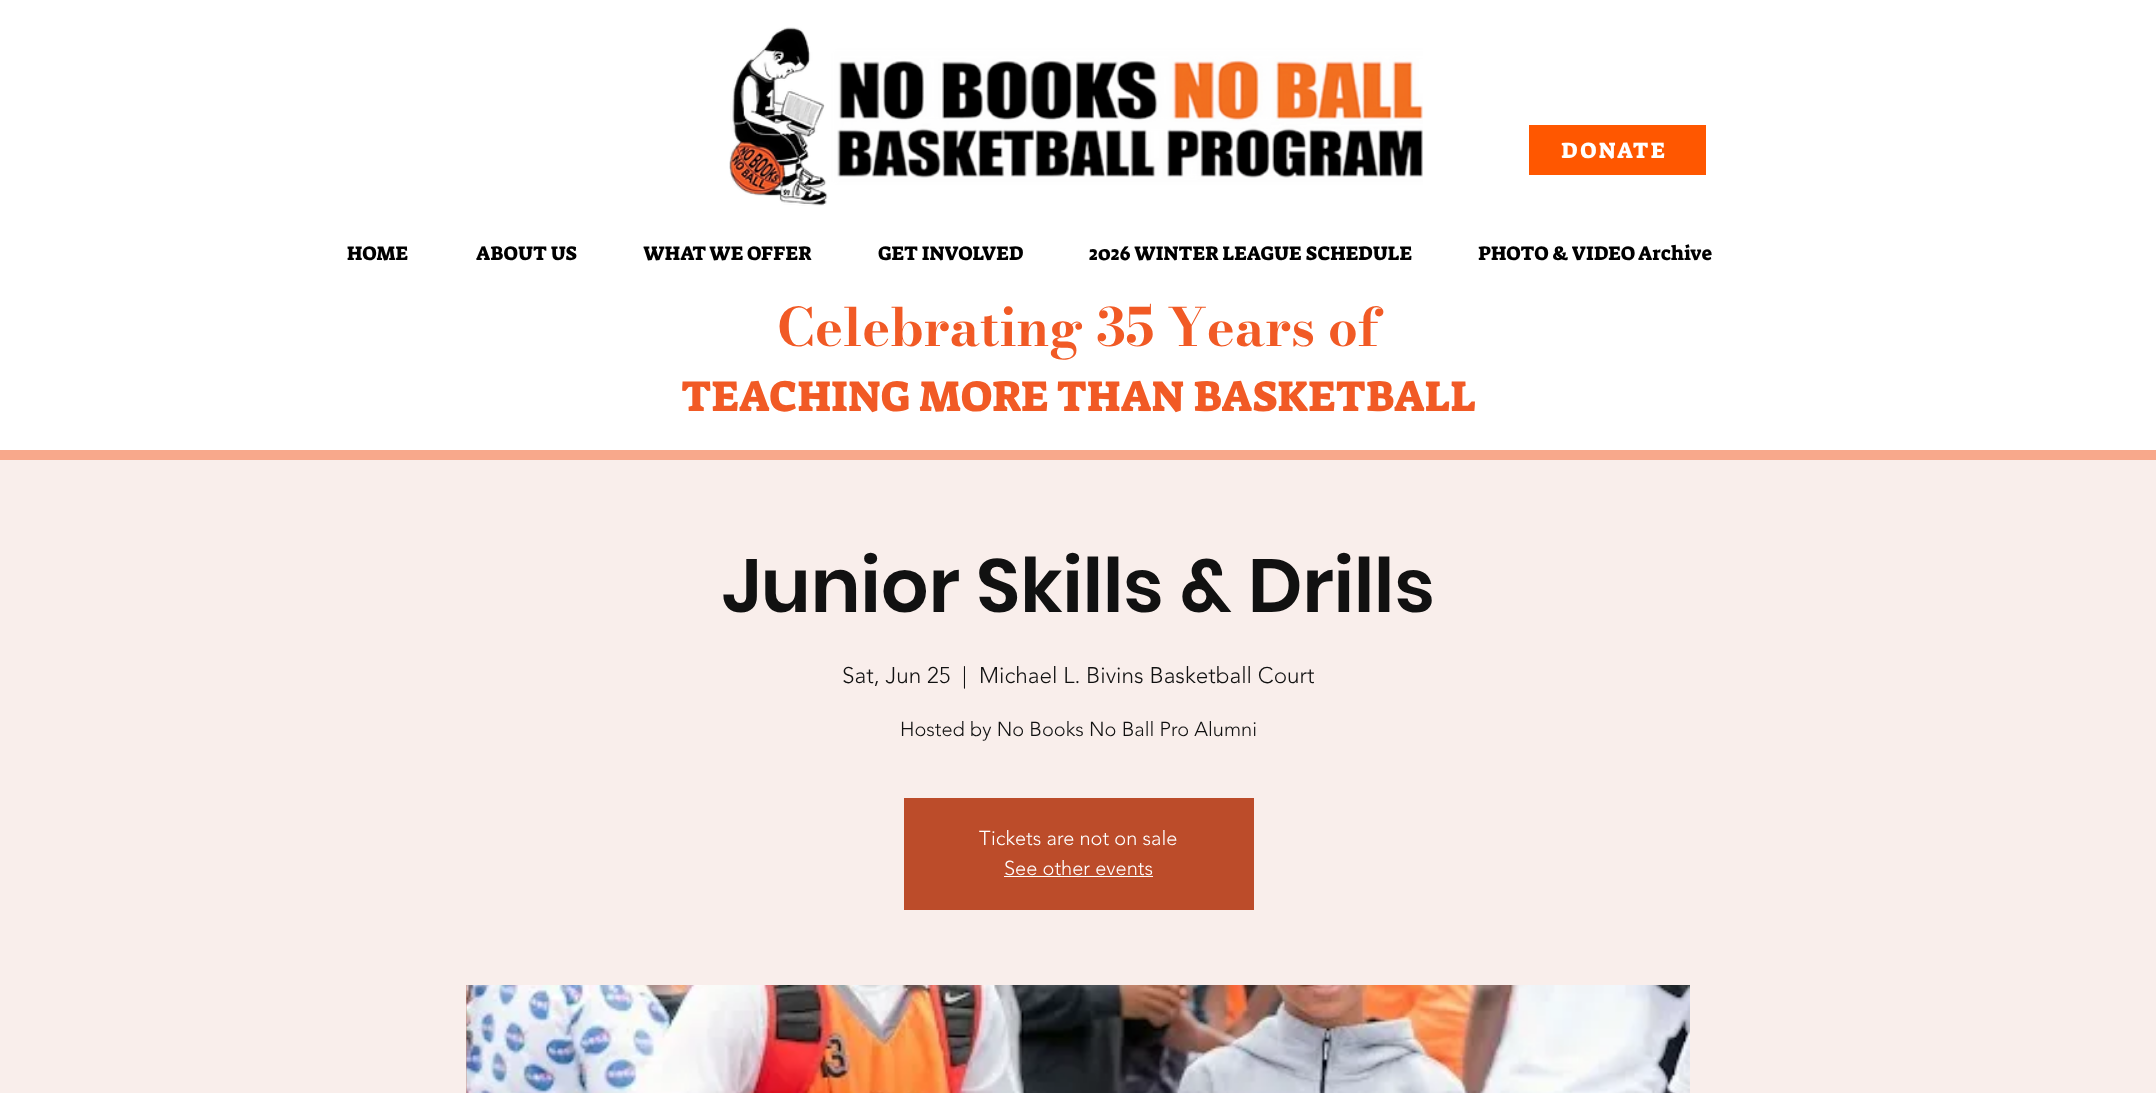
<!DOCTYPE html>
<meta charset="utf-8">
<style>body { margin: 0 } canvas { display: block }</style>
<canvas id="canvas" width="2156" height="1093"></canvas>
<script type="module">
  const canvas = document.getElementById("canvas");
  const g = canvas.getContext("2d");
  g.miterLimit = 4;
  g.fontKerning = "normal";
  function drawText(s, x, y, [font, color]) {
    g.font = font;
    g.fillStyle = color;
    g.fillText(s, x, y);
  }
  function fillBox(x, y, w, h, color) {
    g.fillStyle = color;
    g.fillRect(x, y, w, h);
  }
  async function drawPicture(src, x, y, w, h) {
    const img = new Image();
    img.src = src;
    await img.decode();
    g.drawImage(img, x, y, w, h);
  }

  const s1 = ["22.5px Suez One", "#FFFFFF"];
  const s2 = ["20px Suez One", "#000000"];
  const s3 = ["bold 52.5px Bodoni Moda", "#F15A25"];
  const s4 = ["43.75px Suez One", "#F15A25"];
  const s5 = ["600 75px Poppins", "#111111"];
  const s6 = ["300 22.5px 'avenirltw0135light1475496'", "#111111"];
  const s7 = ["300 20px 'avenirltw0135light1475496'", "#111111"];
  const s8 = ["300 20px 'avenirltw0135light1475496'", "#FFFFFF"];

  fillBox(0, 0, 2156, 1093, "#FFFFFF");
  await drawPicture("pic1.png", 729, 27, 694, 179);
  fillBox(1529, 125, 177, 50, "#FF5700");
  g.letterSpacing = "2.25px";
  drawText("DONATE", 1561, 158, s1);
  g.letterSpacing = "0px";
  drawText("HOME", 347, 260, s2);
  drawText("ABOUT US", 476, 260, s2);
  drawText("WHAT WE OFFER", 643, 260, s2);
  drawText("GET INVOLVED", 878, 260, s2);
  drawText("2026 WINTER LEAGUE SCHEDULE", 1089, 260, s2);
  drawText("PHOTO & VIDEO Archive", 1478, 260, s2);
  drawText("Celebrating 35 Years of", 777, 346, s3);
  drawText("TEACHING MORE THAN BASKETBALL", 681, 411, s4);
  fillBox(0, 450, 2156, 10, "#F8A88B");
  fillBox(0, 460, 2156, 633, "#F9EEEB");
  drawText("Junior Skills & Drills", 722, 612, s5);
  drawText("Sat, Jun 25", 842, 683, s6);
  drawText("|", 962, 683, s6);
  drawText("Michael L. Bivins Basketball Court", 979, 683, s6);
  drawText("Hosted by No Books No Ball Pro Alumni", 900, 736, s7);
  fillBox(904, 798, 350, 112, "#BC4C2A");
  drawText("Tickets are not on sale", 979, 845, s8);
  drawText("See other events", 1004, 875, s8);
  fillBox(1004, 876, 149, 1, "#FFFFFF");
  fillBox(466, 985, 1, 108, "#D29481");
  await drawPicture("pic2.png", 466, 985, 1224, 108);
</script>
